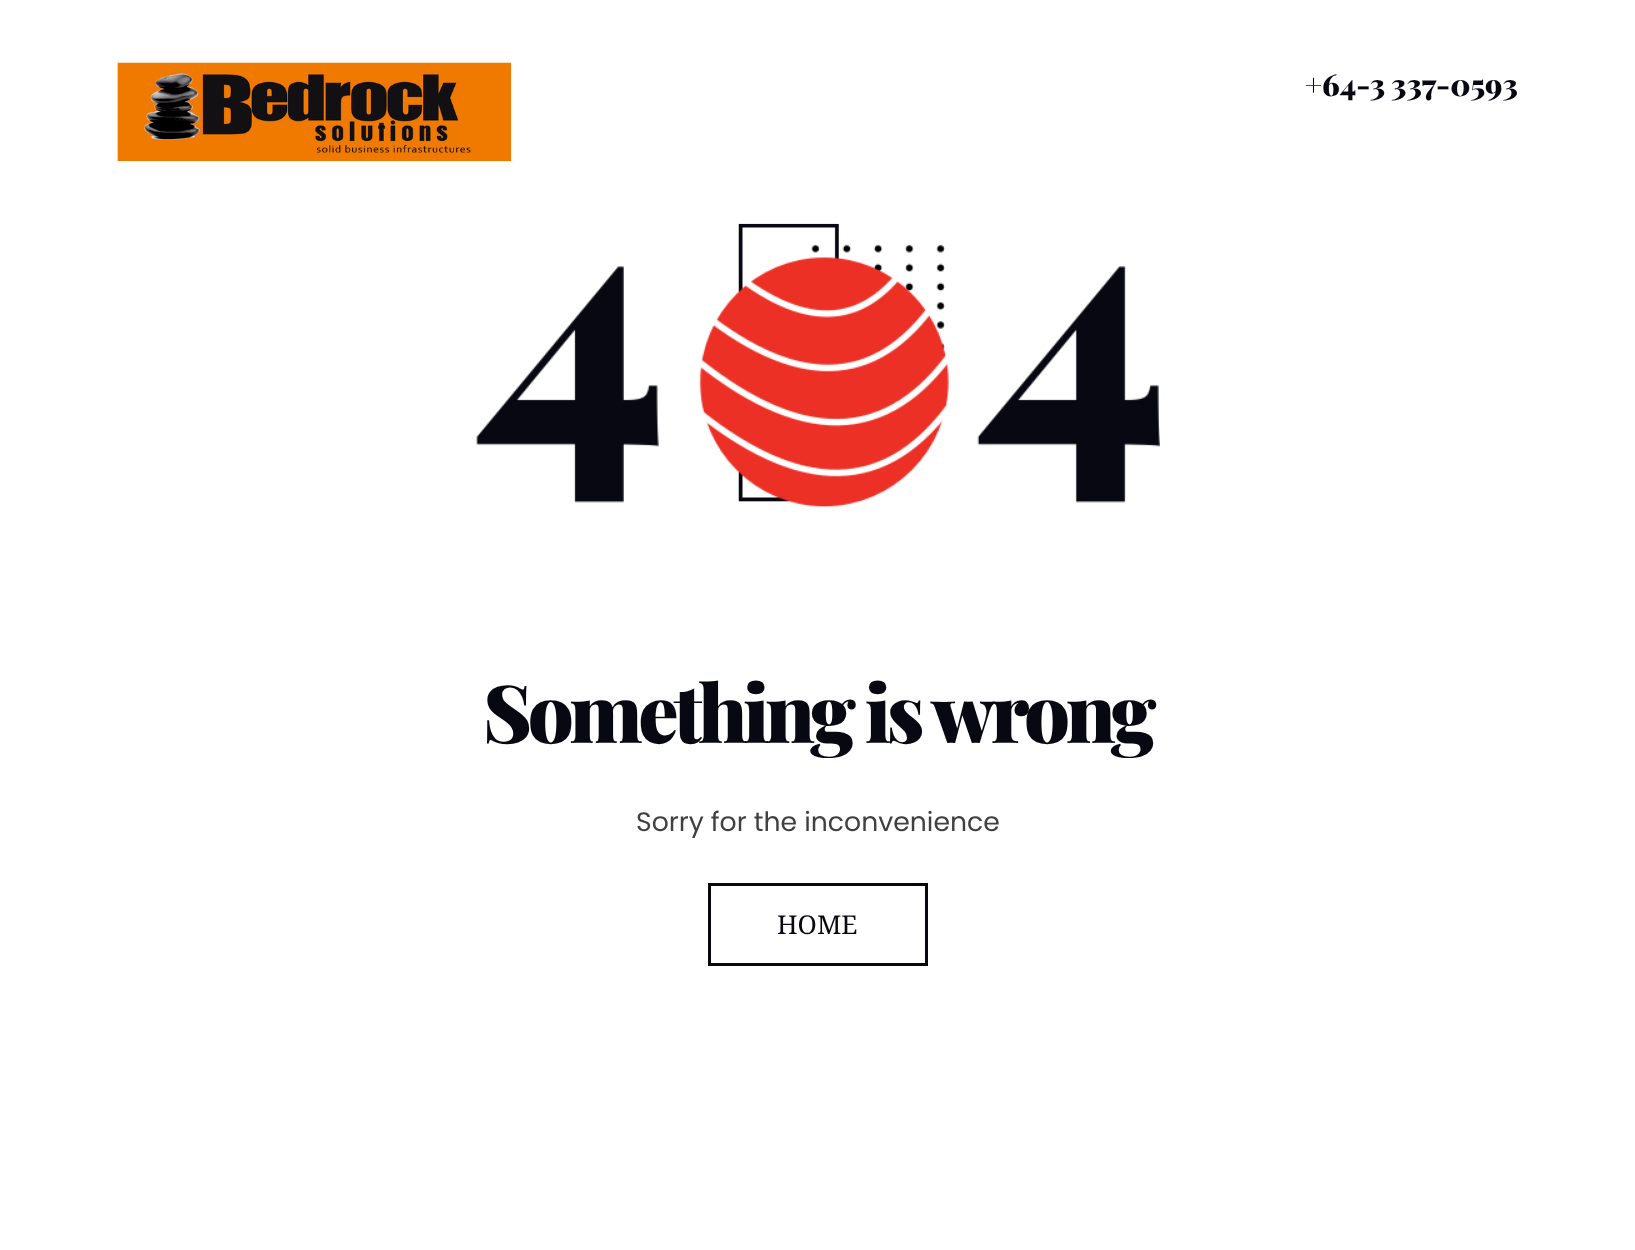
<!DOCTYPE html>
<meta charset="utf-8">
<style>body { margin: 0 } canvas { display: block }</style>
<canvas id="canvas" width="1635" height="1250"></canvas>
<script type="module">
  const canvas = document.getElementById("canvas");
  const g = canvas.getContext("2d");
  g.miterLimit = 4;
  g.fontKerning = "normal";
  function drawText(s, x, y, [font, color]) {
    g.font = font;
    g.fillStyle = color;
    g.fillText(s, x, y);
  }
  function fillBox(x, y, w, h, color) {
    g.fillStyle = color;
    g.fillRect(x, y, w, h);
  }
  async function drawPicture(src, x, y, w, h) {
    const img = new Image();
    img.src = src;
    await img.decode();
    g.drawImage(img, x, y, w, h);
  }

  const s1 = ["900 30px Playfair Display", "#070812"];
  const s2 = ["900 80px Playfair Display", "#070812"];
  const s3 = ["26.7px Poppins", "#404040"];
  const s4 = ["26px Noto Serif", "#070812"];

  fillBox(0, 0, 1635, 1250, "#FFFFFF");
  await drawPicture("pic1.png", 117, 62, 395, 100);
  drawText("+64-3 337-0593", 1305, 96, s1);
  await drawPicture("pic2.png", 476, 223, 684, 284);
  g.letterSpacing = "-4.4px";
  drawText("Something is wrong", 483, 743, s2);
  g.letterSpacing = "0px";
  drawText("Sorry for the inconvenience", 636, 831, s3);
  g.strokeStyle = "#070812";
  g.lineWidth = 3;
  g.strokeRect(709.5, 884.5, 217, 80);
  drawText("HOME", 777, 934, s4);
</script>
